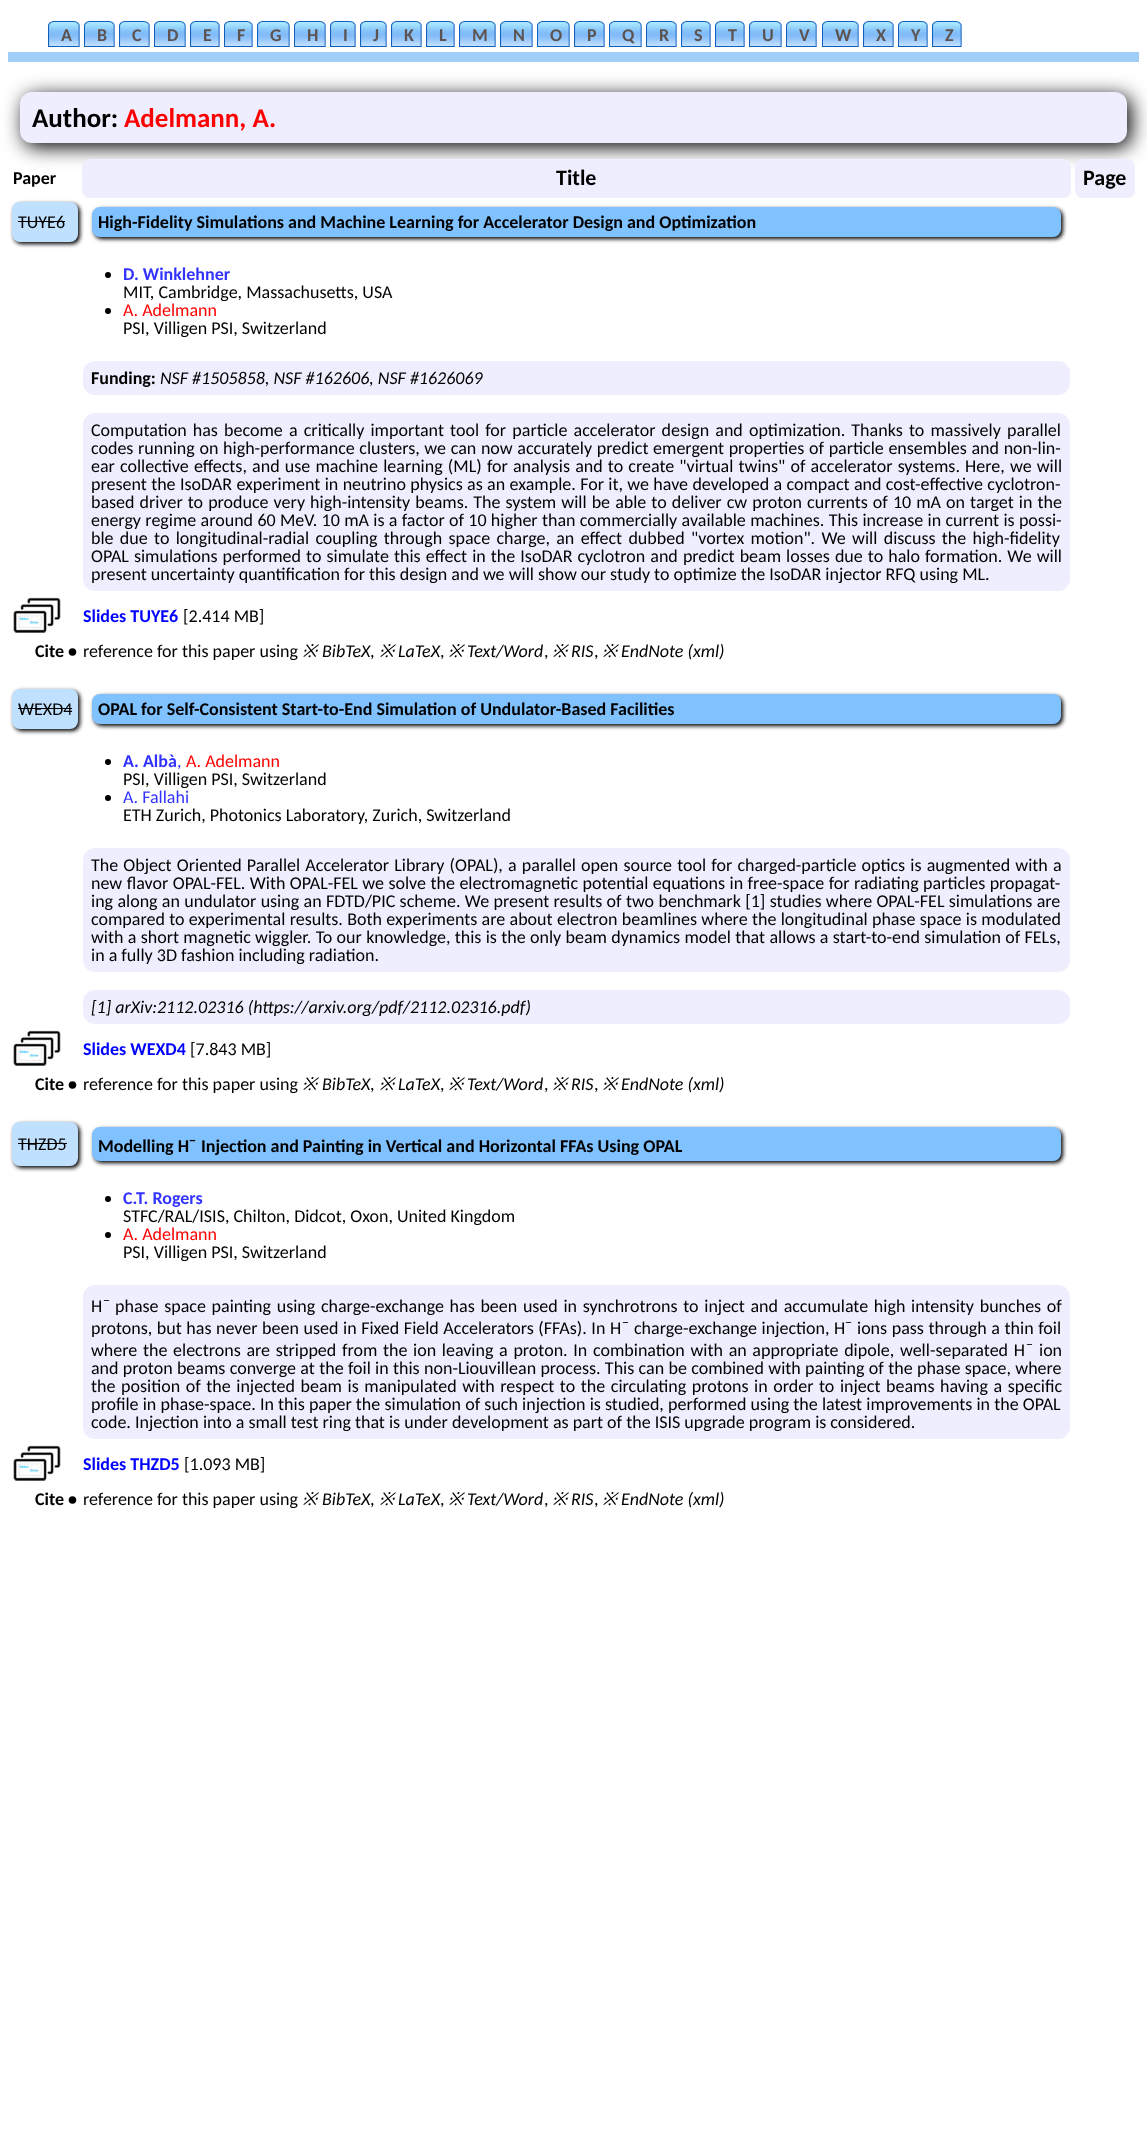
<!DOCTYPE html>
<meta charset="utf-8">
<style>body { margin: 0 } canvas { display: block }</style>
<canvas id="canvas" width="1147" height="2149"></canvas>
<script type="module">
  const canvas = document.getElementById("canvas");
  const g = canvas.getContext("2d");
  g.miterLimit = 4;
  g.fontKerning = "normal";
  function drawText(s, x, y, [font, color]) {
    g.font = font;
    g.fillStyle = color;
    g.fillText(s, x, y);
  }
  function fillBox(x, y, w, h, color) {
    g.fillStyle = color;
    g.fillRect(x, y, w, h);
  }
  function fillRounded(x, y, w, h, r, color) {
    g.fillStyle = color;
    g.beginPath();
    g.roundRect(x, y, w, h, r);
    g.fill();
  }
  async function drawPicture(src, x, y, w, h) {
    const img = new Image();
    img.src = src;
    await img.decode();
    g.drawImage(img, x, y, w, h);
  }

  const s1 = ["bold 18px Carlito", "#5D5350"];
  const s2 = ["bold 27px Carlito", "#000000"];
  const s3 = ["bold 27px Carlito", "#FF0000"];
  const s4 = ["bold 18px Carlito", "#000000"];
  const s5 = ["bold 22px Carlito", "#000000"];
  const s6 = ["18px Carlito", "#000000"];
  const s7 = ["bold 18px Carlito", "#3333FF"];
  const s8 = ["18px Carlito", "#FF0000"];
  const s9 = ["italic 18px Carlito", "#000000"];
  const s10 = ["bold 18px Carlito", "#0000FF"];
  const s11 = ["italic 18px Noto Sans", "#000000"];
  const s12 = ["18px Carlito", "#3333FF"];
  const s13 = ["bold 14px Carlito", "#000000"];
  const s14 = ["14px Carlito", "#000000"];

  fillBox(0, 0, 1147, 2149, "#FFFFFF");
  fillBox(8, 52, 1131, 10, "#A0CEF8");
  await drawPicture("pic1.png", 48, 21, 5, 26);
  await drawPicture("pic2.png", 53, 21, 27, 26);
  await drawPicture("pic3.png", 84, 21, 5, 26);
  await drawPicture("pic4.png", 89, 21, 26, 26);
  await drawPicture("pic5.png", 119, 21, 5, 26);
  await drawPicture("pic6.png", 124, 21, 26, 26);
  await drawPicture("pic3.png", 154, 21, 5, 26);
  await drawPicture("pic7.png", 159, 21, 27, 26);
  await drawPicture("pic1.png", 190, 21, 5, 26);
  await drawPicture("pic8.png", 195, 21, 25, 26);
  await drawPicture("pic3.png", 224, 21, 5, 26);
  await drawPicture("pic9.png", 229, 21, 24, 26);
  await drawPicture("pic5.png", 257, 21, 5, 26);
  await drawPicture("pic10.png", 262, 21, 28, 26);
  await drawPicture("pic3.png", 294, 21, 5, 26);
  await drawPicture("pic7.png", 299, 21, 27, 26);
  await drawPicture("pic1.png", 330, 21, 5, 26);
  await drawPicture("pic11.png", 335, 21, 21, 26);
  await drawPicture("pic1.png", 360, 21, 5, 26);
  await drawPicture("pic12.png", 365, 21, 22, 26);
  await drawPicture("pic1.png", 391, 21, 5, 26);
  await drawPicture("pic13.png", 396, 21, 26, 26);
  await drawPicture("pic1.png", 426, 21, 5, 26);
  await drawPicture("pic14.png", 431, 21, 24, 26);
  await drawPicture("pic1.png", 459, 21, 5, 26);
  await drawPicture("pic15.png", 464, 21, 32, 26);
  await drawPicture("pic1.png", 500, 21, 5, 26);
  await drawPicture("pic16.png", 505, 21, 28, 26);
  await drawPicture("pic3.png", 537, 21, 5, 26);
  await drawPicture("pic17.png", 542, 21, 28, 26);
  await drawPicture("pic1.png", 574, 21, 5, 26);
  await drawPicture("pic18.png", 579, 21, 26, 26);
  await drawPicture("pic3.png", 609, 21, 5, 26);
  await drawPicture("pic19.png", 614, 21, 28, 26);
  await drawPicture("pic3.png", 646, 21, 5, 26);
  await drawPicture("pic4.png", 651, 21, 26, 26);
  await drawPicture("pic5.png", 681, 21, 5, 26);
  await drawPicture("pic20.png", 686, 21, 25, 26);
  await drawPicture("pic1.png", 715, 21, 5, 26);
  await drawPicture("pic21.png", 720, 21, 25, 26);
  await drawPicture("pic1.png", 749, 21, 5, 26);
  await drawPicture("pic22.png", 754, 21, 28, 26);
  await drawPicture("pic23.png", 786, 21, 5, 26);
  await drawPicture("pic24.png", 791, 21, 26, 26);
  await drawPicture("pic3.png", 822, 21, 5, 26);
  await drawPicture("pic25.png", 827, 21, 32, 26);
  await drawPicture("pic1.png", 863, 21, 5, 26);
  await drawPicture("pic26.png", 868, 21, 26, 26);
  await drawPicture("pic3.png", 898, 21, 5, 26);
  await drawPicture("pic27.png", 903, 21, 25, 26);
  await drawPicture("pic1.png", 932, 21, 5, 26);
  await drawPicture("pic28.png", 937, 21, 25, 26);
  drawText("A", 61, 41, s1);
  drawText("B", 97, 41, s1);
  drawText("C", 132, 41, s1);
  drawText("D", 167, 41, s1);
  drawText("E", 203, 41, s1);
  drawText("F", 237, 41, s1);
  drawText("G", 270, 41, s1);
  drawText("H", 307, 41, s1);
  drawText("I", 343, 41, s1);
  drawText("J", 373, 41, s1);
  drawText("K", 404, 41, s1);
  drawText("L", 439, 41, s1);
  drawText("M", 472, 41, s1);
  drawText("N", 513, 41, s1);
  drawText("O", 550, 41, s1);
  drawText("P", 587, 41, s1);
  drawText("Q", 622, 41, s1);
  drawText("R", 659, 41, s1);
  drawText("S", 694, 41, s1);
  drawText("T", 728, 41, s1);
  drawText("U", 762, 41, s1);
  drawText("V", 799, 41, s1);
  drawText("W", 835, 41, s1);
  drawText("X", 876, 41, s1);
  drawText("Y", 911, 41, s1);
  drawText("Z", 945, 41, s1);
  g.fillStyle = "#000000";
  g.filter = "blur(10px)";
  g.beginPath();
  g.roundRect(24, 96, 1107, 51, 12);
  g.fill();
  g.filter = "none";
  fillRounded(20, 92, 1107, 51, 12, "#EEEEFF");
  drawText("Author:", 32, 127, s2);
  drawText("Adelmann, A.", 124, 127, s3);
  drawText("Paper", 13, 184, s4);
  fillRounded(82, 159, 989, 39, 8, "#EEEEFF");
  drawText("Title", 556, 185, s5);
  fillRounded(1075, 159, 60, 39, 8, "#EEEEFF");
  drawText("Page", 1083, 185, s5);
  g.filter = "blur(2px)";
  g.beginPath();
  g.roundRect(14, 204, 66, 40, 8);
  g.fill();
  g.filter = "none";
  fillRounded(12, 202, 66, 40, 8, "#C0E0FF");
  drawText("TUYE6", 18, 228, s6);
  fillBox(18, 221, 47, 1, "#000000");
  g.filter = "blur(2px)";
  g.beginPath();
  g.roundRect(94, 209, 969, 30, 8);
  g.fill();
  g.filter = "none";
  fillRounded(92, 207, 969, 30, 8, "#80C1FF");
  drawText("High-Fidelity Simulations and Machine Learning for Accelerator Design and Optimization", 98, 228, s4);
  g.beginPath();
  g.arc(108, 275, 3, 0, Math.PI * 2);
  g.fill();
  drawText("D. Winklehner", 123, 280, s7);
  drawText("MIT, Cambridge, Massachusetts, USA", 123, 298, s6);
  g.beginPath();
  g.arc(108, 311, 3, 0, Math.PI * 2);
  g.fill();
  drawText("A. Adelmann", 123, 316, s8);
  drawText("PSI, Villigen PSI, Switzerland", 123, 334, s6);
  fillRounded(83, 361, 987, 34, 12, "#EEEEFF");
  drawText("Funding:", 91, 384, s4);
  drawText("NSF #1505858, NSF #162606, NSF #1626069", 160, 384, s9);
  fillRounded(83, 413, 987, 178, 12, "#EEEEFF");
  g.wordSpacing = "2.1px";
  drawText("Computation has become a critically important tool for particle accelerator design and optimization. Thanks to massively parallel", 91, 436, s6);
  g.wordSpacing = "0.6px";
  drawText("codes running on high-performance clusters, we can now accurately predict emergent properties of particle ensembles and non-lin-", 91, 454, s6);
  g.wordSpacing = "1.1px";
  drawText("ear collective effects, and use machine learning (ML) for analysis and to create \"virtual twins\" of accelerator systems. Here, we will", 91, 472, s6);
  g.wordSpacing = "0.3px";
  drawText("present the IsoDAR experiment in neutrino physics as an example. For it, we have developed a compact and cost-effective cyclotron-", 91, 490, s6);
  g.wordSpacing = "1px";
  drawText("based driver to produce very high-intensity beams. The system will be able to deliver cw proton currents of 10 mA on target in the", 91, 508, s6);
  g.wordSpacing = "0.25px";
  drawText("energy regime around 60 MeV. 10 mA is a factor of 10 higher than commercially available machines. This increase in current is possi-", 91, 526, s6);
  g.wordSpacing = "2.25px";
  drawText("ble due to longitudinal-radial coupling through space charge, an effect dubbed \"vortex motion\". We will discuss the high-fidelity", 91, 544, s6);
  g.wordSpacing = "1px";
  drawText("OPAL simulations performed to simulate this effect in the IsoDAR cyclotron and predict beam losses due to halo formation. We will", 91, 562, s6);
  g.wordSpacing = "0px";
  drawText("present uncertainty quantification for this design and we will show our study to optimize the IsoDAR injector RFQ using ML.", 91, 580, s6);
  await drawPicture("pic29.png", 13, 597, 48, 36);
  drawText("Slides TUYE6", 83, 622, s10);
  drawText("[2.414 MB]", 183, 622, s6);
  drawText("Cite •", 35, 657, s4);
  drawText("reference for this paper using", 83, 657, s6);
  drawText("※", 302, 657, s11);
  drawText("BibTeX", 322, 657, s9);
  drawText(",", 370, 657, s6);
  drawText("※", 379, 657, s11);
  drawText("LaTeX", 398, 657, s9);
  drawText(",", 440, 657, s6);
  drawText("※", 448, 657, s11);
  drawText("Text/Word", 467, 657, s9);
  drawText(",", 544, 657, s6);
  drawText("※", 552, 657, s11);
  drawText("RIS", 571, 657, s9);
  drawText(",", 594, 657, s6);
  drawText("※", 602, 657, s11);
  drawText("EndNote (xml)", 621, 657, s9);
  g.filter = "blur(2px)";
  g.beginPath();
  g.roundRect(14, 691, 66, 40, 8);
  g.fill();
  g.filter = "none";
  fillRounded(12, 689, 66, 40, 8, "#C0E0FF");
  drawText("WEXD4", 18, 715, s6);
  fillBox(18, 708, 54, 1, "#000000");
  g.filter = "blur(2px)";
  g.beginPath();
  g.roundRect(94, 696, 969, 30, 8);
  g.fill();
  g.filter = "none";
  fillRounded(92, 694, 969, 30, 8, "#80C1FF");
  drawText("OPAL for Self-Consistent Start-to-End Simulation of Undulator-Based Facilities", 98, 715, s4);
  g.beginPath();
  g.arc(108, 762, 3, 0, Math.PI * 2);
  g.fill();
  drawText("A. Albà", 123, 767, s7);
  drawText("A. Adelmann", 186, 767, s8);
  drawText(",", 177, 767, s12);
  drawText("PSI, Villigen PSI, Switzerland", 123, 785, s6);
  g.beginPath();
  g.arc(108, 798, 3, 0, Math.PI * 2);
  g.fill();
  drawText("A. Fallahi", 123, 803, s12);
  drawText("ETH Zurich, Photonics Laboratory, Zurich, Switzerland", 123, 821, s6);
  fillRounded(83, 848, 987, 124, 12, "#EEEEFF");
  g.wordSpacing = "1.1px";
  drawText("The Object Oriented Parallel Accelerator Library (OPAL), a parallel open source tool for charged-particle optics is augmented with a", 91, 871, s6);
  g.wordSpacing = "0.4px";
  drawText("new flavor OPAL-FEL. With OPAL-FEL we solve the electromagnetic potential equations in free-space for radiating particles propagat-", 91, 889, s6);
  g.wordSpacing = "0.25px";
  drawText("ing along an undulator using an FDTD/PIC scheme. We present results of two benchmark [1] studies where OPAL-FEL simulations are", 91, 907, s6);
  drawText("compared to experimental results. Both experiments are about electron beamlines where the longitudinal phase space is modulated", 91, 925, s6);
  drawText("with a short magnetic wiggler. To our knowledge, this is the only beam dynamics model that allows a start-to-end simulation of FELs,", 91, 943, s6);
  g.wordSpacing = "0px";
  drawText("in a fully 3D fashion including radiation.", 91, 961, s6);
  fillRounded(83, 990, 987, 34, 12, "#EEEEFF");
  drawText("[1] arXiv:2112.02316 (https://arxiv.org/pdf/2112.02316.pdf)", 91, 1013, s9);
  await drawPicture("pic29.png", 13, 1030, 48, 36);
  drawText("Slides WEXD4", 83, 1055, s10);
  drawText("[7.843 MB]", 190, 1055, s6);
  drawText("Cite •", 35, 1090, s4);
  drawText("reference for this paper using", 83, 1090, s6);
  drawText("※", 302, 1090, s11);
  drawText("BibTeX", 322, 1090, s9);
  drawText(",", 370, 1090, s6);
  drawText("※", 379, 1090, s11);
  drawText("LaTeX", 398, 1090, s9);
  drawText(",", 440, 1090, s6);
  drawText("※", 448, 1090, s11);
  drawText("Text/Word", 467, 1090, s9);
  drawText(",", 544, 1090, s6);
  drawText("※", 552, 1090, s11);
  drawText("RIS", 571, 1090, s9);
  drawText(",", 594, 1090, s6);
  drawText("※", 602, 1090, s11);
  drawText("EndNote (xml)", 621, 1090, s9);
  g.filter = "blur(2px)";
  g.beginPath();
  g.roundRect(14, 1124, 66, 44, 8);
  g.fill();
  g.filter = "none";
  fillRounded(12, 1122, 66, 44, 8, "#C0E0FF");
  drawText("THZD5", 18, 1150, s6);
  fillBox(18, 1143, 49, 1, "#000000");
  g.filter = "blur(2px)";
  g.beginPath();
  g.roundRect(94, 1129, 969, 34, 8);
  g.fill();
  g.filter = "none";
  fillRounded(92, 1127, 969, 34, 8, "#80C1FF");
  drawText("Modelling H", 98, 1152, s4);
  drawText("−", 189, 1145, s13);
  drawText("Injection and Painting in Vertical and Horizontal FFAs Using OPAL", 201, 1152, s4);
  g.beginPath();
  g.arc(108, 1199, 3, 0, Math.PI * 2);
  g.fill();
  drawText("C.T. Rogers", 123, 1204, s7);
  drawText("STFC/RAL/ISIS, Chilton, Didcot, Oxon, United Kingdom", 123, 1222, s6);
  g.beginPath();
  g.arc(108, 1235, 3, 0, Math.PI * 2);
  g.fill();
  drawText("A. Adelmann", 123, 1240, s8);
  drawText("PSI, Villigen PSI, Switzerland", 123, 1258, s6);
  fillRounded(83, 1285, 987, 154, 12, "#EEEEFF");
  drawText("H", 91, 1312, s6);
  drawText("−", 103, 1305, s14);
  g.wordSpacing = "1.6px";
  drawText("phase space painting using charge-exchange has been used in synchrotrons to inject and accumulate high intensity bunches of", 115, 1312, s6);
  g.wordSpacing = "0.5px";
  drawText("protons, but has never been used in Fixed Field Accelerators (FFAs). In H", 91, 1334, s6);
  g.wordSpacing = "0px";
  drawText("−", 622, 1327, s14);
  g.wordSpacing = "0.5px";
  drawText("charge-exchange injection, H", 634, 1334, s6);
  g.wordSpacing = "0px";
  drawText("−", 845, 1327, s14);
  g.wordSpacing = "0.5px";
  drawText("ions pass through a thin foil", 857, 1334, s6);
  g.wordSpacing = "1.6px";
  drawText("where the electrons are stripped from the ion leaving a proton. In combination with an appropriate dipole, well-separated H", 91, 1356, s6);
  g.wordSpacing = "0px";
  drawText("−", 1026, 1349, s14);
  drawText("ion", 1039, 1356, s6);
  g.wordSpacing = "0.25px";
  drawText("and proton beams converge at the foil in this non-Liouvillean process. This can be combined with painting of the phase space, where", 91, 1374, s6);
  g.wordSpacing = "1.5px";
  drawText("the position of the injected beam is manipulated with respect to the circulating protons in order to inject beams having a specific", 91, 1392, s6);
  g.wordSpacing = "0.1px";
  drawText("profile in phase-space. In this paper the simulation of such injection is studied, performed using the latest improvements in the OPAL", 91, 1410, s6);
  g.wordSpacing = "0px";
  drawText("code. Injection into a small test ring that is under development as part of the ISIS upgrade program is considered.", 91, 1428, s6);
  await drawPicture("pic29.png", 13, 1445, 48, 36);
  drawText("Slides THZD5", 83, 1470, s10);
  drawText("[1.093 MB]", 184, 1470, s6);
  drawText("Cite •", 35, 1505, s4);
  drawText("reference for this paper using", 83, 1505, s6);
  drawText("※", 302, 1505, s11);
  drawText("BibTeX", 322, 1505, s9);
  drawText(",", 370, 1505, s6);
  drawText("※", 379, 1505, s11);
  drawText("LaTeX", 398, 1505, s9);
  drawText(",", 440, 1505, s6);
  drawText("※", 448, 1505, s11);
  drawText("Text/Word", 467, 1505, s9);
  drawText(",", 544, 1505, s6);
  drawText("※", 552, 1505, s11);
  drawText("RIS", 571, 1505, s9);
  drawText(",", 594, 1505, s6);
  drawText("※", 602, 1505, s11);
  drawText("EndNote (xml)", 621, 1505, s9);
</script>
